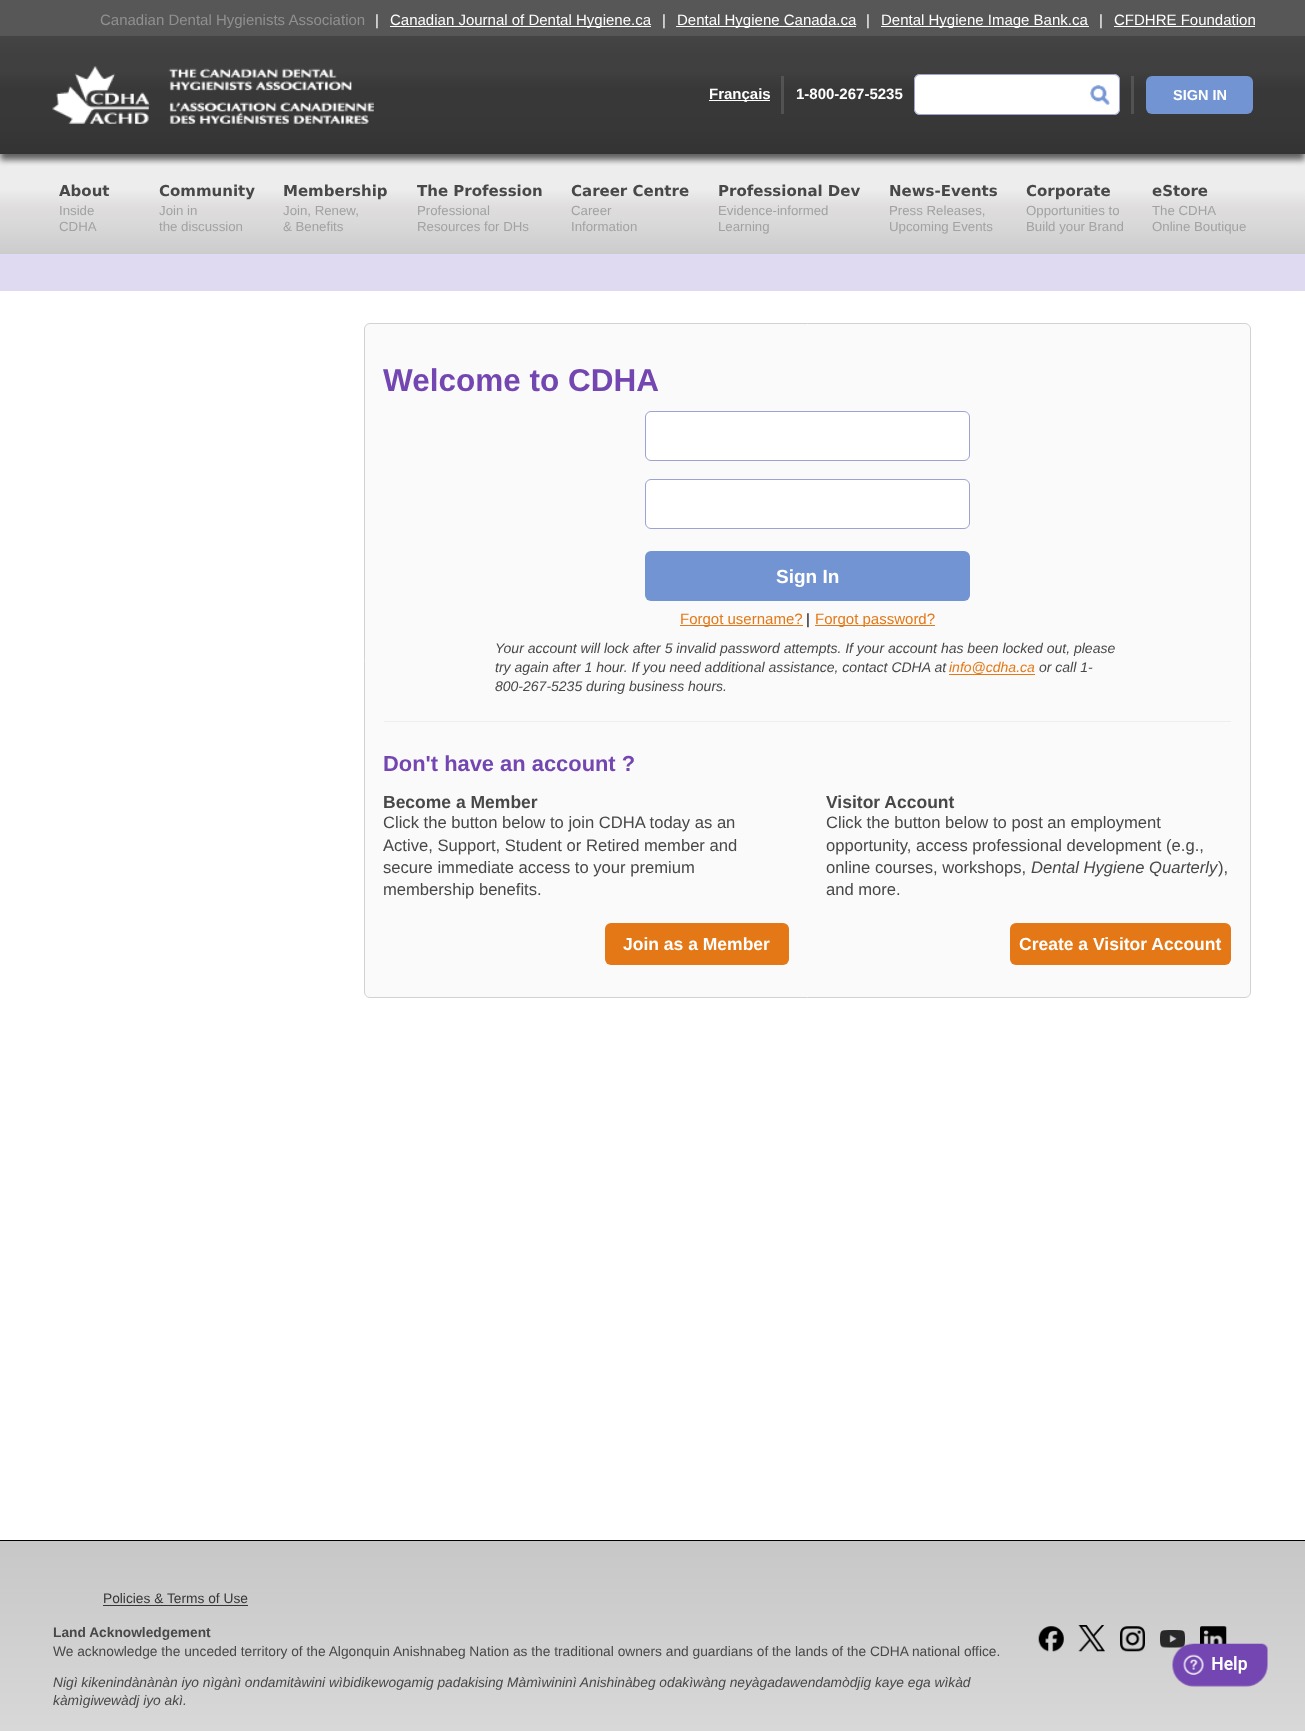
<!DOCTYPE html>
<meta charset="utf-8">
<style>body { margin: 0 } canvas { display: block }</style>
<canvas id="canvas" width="1305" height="1731"></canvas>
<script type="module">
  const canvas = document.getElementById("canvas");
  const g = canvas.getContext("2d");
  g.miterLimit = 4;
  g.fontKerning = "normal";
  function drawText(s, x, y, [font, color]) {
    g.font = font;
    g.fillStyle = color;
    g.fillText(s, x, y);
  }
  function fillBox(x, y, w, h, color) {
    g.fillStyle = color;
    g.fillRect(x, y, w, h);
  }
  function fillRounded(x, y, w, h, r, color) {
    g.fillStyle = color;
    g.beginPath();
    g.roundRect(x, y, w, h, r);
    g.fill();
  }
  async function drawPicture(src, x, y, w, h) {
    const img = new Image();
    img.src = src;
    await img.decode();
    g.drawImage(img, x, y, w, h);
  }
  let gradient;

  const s1 = ["15px Liberation Sans", "#909090"];
  const s2 = ["15px Liberation Sans", "#FFFFFF"];
  const s3 = ["bold 15px Liberation Sans", "#FFFFFF"];
  const s4 = ["bold 14.5px Liberation Sans", "#FFFFFF"];
  const s5 = ["bold 15px DejaVu Sans", "#484848"];
  const s6 = ["13.25px Liberation Sans", "#A2A2A2"];
  const s7 = ["bold 31.5px Liberation Sans", "#7346B1"];
  const s8 = ["bold 19px Liberation Sans", "#FFFFFF"];
  const s9 = ["15px Liberation Sans", "#E47816"];
  const s10 = ["15px Liberation Sans", "#000000"];
  const s11 = ["italic 14px Liberation Sans", "#484848"];
  const s12 = ["italic 14px Liberation Sans", "#E47816"];
  const s13 = ["bold 21.9px Liberation Sans", "#7346B1"];
  const s14 = ["bold 17.5px Liberation Sans", "#484848"];
  const s15 = ["16.6px Liberation Sans", "#484848"];
  const s16 = ["bold 17.5px Liberation Sans", "#FFFFFF"];
  const s17 = ["italic 16.6px Liberation Sans", "#484848"];
  const s18 = ["13.75px Liberation Sans", "#363636"];
  const s19 = ["bold 13.75px Liberation Sans", "#484848"];
  const s20 = ["13.75px Liberation Sans", "#484848"];
  const s21 = ["italic 13.75px Liberation Sans", "#484848"];

  fillBox(0, 0, 1305, 1731, "#FFFFFF");
  fillBox(0, 0, 1305, 36, "#575757");
  drawText("Canadian Dental Hygienists Association", 100, 25, s1);
  drawText("|", 375, 25, s2);
  fillBox(390, 26, 261, 1, "#FFFFFF");
  drawText("Canadian Journal of Dental Hygiene.ca", 390, 25, s2);
  drawText("|", 662, 25, s2);
  fillBox(676, 26, 180, 1, "#FFFFFF");
  drawText("Dental Hygiene Canada.ca", 677, 25, s2);
  drawText("|", 866, 25, s2);
  fillBox(881, 26, 208, 1, "#FFFFFF");
  drawText("Dental Hygiene Image Bank.ca", 881, 25, s2);
  drawText("|", 1099, 25, s2);
  drawText("CFDHRE Foundation", 1114, 25, s2);
  fillBox(1114, 26, 141, 1, "#FFFFFF");
  gradient = g.createLinearGradient(653, 254, 653, 154);
  gradient.addColorStop(0, "#CCCCCC");
  gradient.addColorStop(0.15, "#D3D2D2");
  gradient.addColorStop(0.3, "#DAD9D9");
  gradient.addColorStop(0.45, "#DEDCDC");
  gradient.addColorStop(0.65, "#EDEDED");
  gradient.addColorStop(0.85, "#EDEDED");
  gradient.addColorStop(1, "#F5F4F4");
  g.fillStyle = gradient;
  g.fillRect(0, 154, 1305, 100);
  g.fillStyle = "#5F5F5F";
  g.filter = "blur(3px)";
  g.beginPath();
  g.rect(0, 43, 1305, 117);
  g.fill();
  g.filter = "none";
  gradient = g.createLinearGradient(653, 36, 653, 154);
  gradient.addColorStop(0, "#444444");
  gradient.addColorStop(0.15, "#404040");
  gradient.addColorStop(0.3, "#404040");
  gradient.addColorStop(0.45, "#383838");
  gradient.addColorStop(0.65, "#383838");
  gradient.addColorStop(0.85, "#363636");
  gradient.addColorStop(1, "#333333");
  g.fillStyle = gradient;
  g.fillRect(0, 36, 1305, 118);
  gradient = g.createLinearGradient(653, 36, 653, 154);
  gradient.addColorStop(0, "#575757");
  gradient.addColorStop(0.15, "#565656");
  gradient.addColorStop(0.3, "#565656");
  gradient.addColorStop(0.45, "#525252");
  gradient.addColorStop(0.65, "#525252");
  gradient.addColorStop(0.85, "#525252");
  gradient.addColorStop(1, "#505050");
  g.fillStyle = gradient;
  g.fillRect(1131, 76, 3, 38);
  g.fillRect(781, 76, 3, 38);
  await drawPicture("pic1.png", 52, 66, 322, 58);
  fillBox(709, 100, 61, 1, "#FFFFFF");
  drawText("Français", 709, 99, s3);
  drawText("1-800-267-5235", 796, 99, s3);
  fillRounded(914, 74, 206, 41, 6, "#FFFFFF");
  await drawPicture("pic2.png", 1090, 85, 20, 20);
  g.beginPath();
  g.roundRect(914.5, 74.5, 205, 40, 5.5);
  g.strokeStyle = "#9CA2D2";
  g.stroke();
  fillRounded(1146, 76, 107, 38, 6, "#7294D3");
  drawText("SIGN IN", 1173, 100, s4);
  drawText("About", 59, 196, s5);
  drawText("Inside", 59, 215, s6);
  drawText("CDHA", 59, 231, s6);
  drawText("Community", 159, 196, s5);
  drawText("Join in", 159, 215, s6);
  drawText("the discussion", 159, 231, s6);
  drawText("Membership", 283, 196, s5);
  drawText("Join, Renew,", 283, 215, s6);
  drawText("& Benefits", 283, 231, s6);
  drawText("The Profession", 417, 196, s5);
  drawText("Professional", 417, 215, s6);
  drawText("Resources for DHs", 417, 231, s6);
  drawText("Career Centre", 571, 196, s5);
  drawText("Career", 571, 215, s6);
  drawText("Information", 571, 231, s6);
  drawText("Professional Dev", 718, 196, s5);
  drawText("Evidence-informed", 718, 215, s6);
  drawText("Learning", 718, 231, s6);
  drawText("News-Events", 889, 196, s5);
  drawText("Press Releases,", 889, 215, s6);
  drawText("Upcoming Events", 889, 231, s6);
  drawText("Corporate", 1026, 196, s5);
  drawText("Opportunities to", 1026, 215, s6);
  drawText("Build your Brand", 1026, 231, s6);
  drawText("eStore", 1152, 196, s5);
  drawText("The CDHA", 1152, 215, s6);
  drawText("Online Boutique", 1152, 231, s6);
  fillBox(0, 254, 1305, 37, "#DFD9F2");
  g.fillStyle = "#FAFAFA";
  g.beginPath();
  g.roundRect(364.5, 323.5, 886, 674, 5.5);
  g.fill();
  g.strokeStyle = "#D2D2D2";
  g.stroke();
  drawText("Welcome to CDHA", 383, 391, s7);
  g.fillStyle = "#FFFFFF";
  g.beginPath();
  g.roundRect(645.5, 411.5, 324, 49, 5.5);
  g.fill();
  g.strokeStyle = "#9CA2D2";
  g.stroke();
  g.beginPath();
  g.roundRect(645.5, 479.5, 324, 49, 5.5);
  g.fill();
  g.stroke();
  fillRounded(645, 551, 325, 50, 6, "#7294D3");
  drawText("Sign In", 776, 583, s8);
  fillBox(680, 625, 123, 1, "#E47816");
  drawText("Forgot username?", 680, 624, s9);
  drawText("|", 806, 624, s10);
  fillBox(815, 625, 120, 1, "#E47816");
  drawText("Forgot password?", 815, 624, s9);
  drawText("Your account will lock after 5 invalid password attempts. If your account has been locked out, please", 495, 653, s11);
  drawText("try again after 1 hour. If you need additional assistance, contact CDHA at", 495, 672, s11);
  drawText("info@cdha.ca", 949, 672, s12);
  fillBox(949, 674, 86, 1, "#E47816");
  drawText("or call 1-", 1039, 672, s11);
  drawText("800-267-5235 during business hours.", 495, 691, s11);
  fillBox(384, 721, 847, 1, "#EEEEEE");
  drawText("Don't have an account ?", 383, 771, s13);
  drawText("Become a Member", 383, 808, s14);
  drawText("Click the button below to join CDHA today as an", 383, 828, s15);
  drawText("Active, Support, Student or Retired member and", 383, 851, s15);
  drawText("secure immediate access to your premium", 383, 873, s15);
  drawText("membership benefits.", 383, 895, s15);
  fillRounded(605, 923, 184, 42, 6, "#E47816");
  drawText("Join as a Member", 623, 950, s16);
  drawText("Visitor Account", 826, 808, s14);
  drawText("Click the button below to post an employment", 826, 828, s15);
  drawText("opportunity, access professional development (e.g.,", 826, 851, s15);
  drawText("online courses, workshops,", 826, 873, s15);
  drawText("Dental Hygiene Quarterly", 1031, 873, s17);
  drawText("),", 1218, 873, s15);
  drawText("and more.", 826, 895, s15);
  fillRounded(1010, 923, 221, 42, 6, "#E47816");
  drawText("Create a Visitor Account", 1019, 950, s16);
  gradient = g.createLinearGradient(653, 1541, 653, 1731);
  gradient.addColorStop(0, "#C7C7C7");
  gradient.addColorStop(1, "#D8D8D8");
  g.fillStyle = gradient;
  g.fillRect(0, 1541, 1305, 190);
  fillBox(0, 1540, 1305, 1, "#000000");
  drawText("Policies & Terms of Use", 103, 1603, s18);
  fillBox(103, 1605, 145, 1, "#363636");
  drawText("Land Acknowledgement", 53, 1637, s19);
  drawText("We acknowledge the unceded territory of the Algonquin Anishnabeg Nation as the traditional owners and guardians of the lands of the CDHA national office.", 53, 1656, s20);
  drawText("Nigì kikenindànànàn iyo nìgànì ondamitàwini wìbidikewogamig padakising Màmìwininì Anishinàbeg odakìwàng neyàgadawendamòdjig kaye ega wìkàd", 53, 1687, s21);
  drawText("kàmìgiwewàdj iyo akì.", 53, 1705, s21);
  await drawPicture("pic3.png", 1038, 1626, 26, 26);
  await drawPicture("pic4.png", 1078, 1625, 27, 27);
  await drawPicture("pic5.png", 1120, 1626, 25, 26);
  await drawPicture("pic6.png", 1160, 1630, 25, 18);
  await drawPicture("pic7.png", 1200, 1626, 27, 18);
  await drawPicture("pic8.png", 1172, 1643, 96, 44);
</script>
